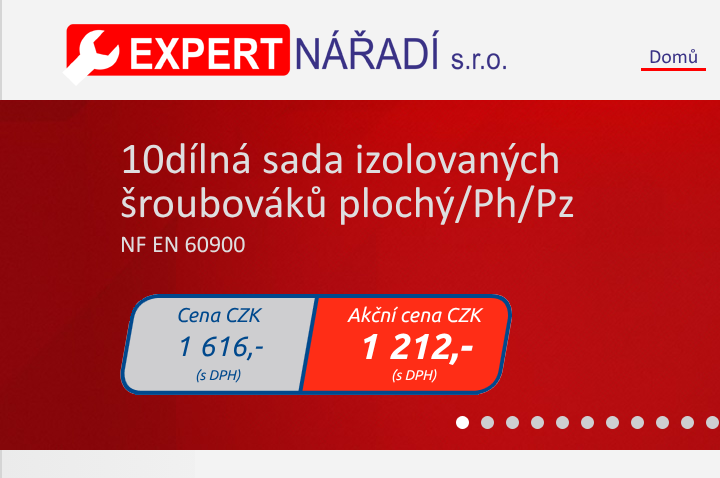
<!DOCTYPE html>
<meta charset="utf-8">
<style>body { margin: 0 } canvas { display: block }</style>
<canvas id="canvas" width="720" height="478"></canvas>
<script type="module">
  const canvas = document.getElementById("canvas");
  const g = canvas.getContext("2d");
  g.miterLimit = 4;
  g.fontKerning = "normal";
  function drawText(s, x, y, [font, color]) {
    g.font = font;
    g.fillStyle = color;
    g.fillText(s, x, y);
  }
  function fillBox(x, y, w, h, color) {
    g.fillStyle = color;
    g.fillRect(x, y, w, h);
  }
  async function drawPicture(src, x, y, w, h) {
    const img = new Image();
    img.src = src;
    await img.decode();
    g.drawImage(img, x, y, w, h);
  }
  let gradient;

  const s1 = ["20px Calibri", "#393185"];
  const s2 = ["44px Calibri", "#DEDEDF"];
  const s3 = ["24px Calibri", "#DEDEDF"];
  const s4 = ["italic 20px Ubuntu", "#00498D"];
  const s5 = ["italic 28px Ubuntu", "#00498D"];
  const s6 = ["italic 14px Ubuntu", "#00498D"];
  const s7 = ["italic 20px Ubuntu", "#FFFFFF"];
  const s8 = ["italic bold 36px Ubuntu", "#FFFFFF"];
  const s9 = ["italic 14px Ubuntu", "#FFFFFF"];

  fillBox(0, 0, 720, 478, "#F3F3F3");
  fillBox(0, 0, 2, 100, "#D5D5D5");
  await drawPicture("pic1.png", 62, 24, 444, 62);
  drawText("Domů", 649, 63, s1);
  fillBox(641, 68, 65, 3, "#FF0000");
  await drawPicture("pic2.png", 0, 100, 720, 350);
  drawText("10dílná sada izolovaných", 120, 173, s2);
  drawText("šroubováků plochý/Ph/Pz", 120, 217, s2);
  drawText("NF EN 60900", 120, 252, s3);
  await drawPicture("pic3.png", 120, 294, 392, 101);
  drawText("Cena CZK", 176, 322, s4);
  drawText("1", 175, 356, s5);
  drawText("616,-", 199, 356, s5);
  drawText("(s DPH)", 195, 380, s6);
  drawText("Akční cena CZK", 347, 322, s7);
  drawText("1", 357, 359, s8);
  drawText("212,-", 388, 359, s8);
  drawText("(s DPH)", 391, 380, s9);
  await drawPicture("pic4.png", 456, 416, 13, 13);
  await drawPicture("pic5.png", 481, 416, 13, 13);
  await drawPicture("pic6.png", 506, 416, 13, 13);
  await drawPicture("pic7.png", 531, 416, 13, 13);
  await drawPicture("pic8.png", 556, 416, 13, 13);
  await drawPicture("pic9.png", 581, 416, 13, 13);
  await drawPicture("pic10.png", 606, 416, 13, 13);
  await drawPicture("pic11.png", 631, 416, 13, 13);
  await drawPicture("pic12.png", 656, 416, 13, 13);
  await drawPicture("pic13.png", 681, 416, 13, 13);
  await drawPicture("pic14.png", 706, 416, 13, 13);
  fillBox(0, 450, 2, 28, "#D5D5D5");
  gradient = g.createLinearGradient(2, 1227, 282, 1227);
  gradient.addColorStop(0, "#EBEBEB");
  gradient.addColorStop(1, "#F3F3F3");
  g.fillStyle = gradient;
  g.fillRect(2, 450, 193, 28);
</script>
